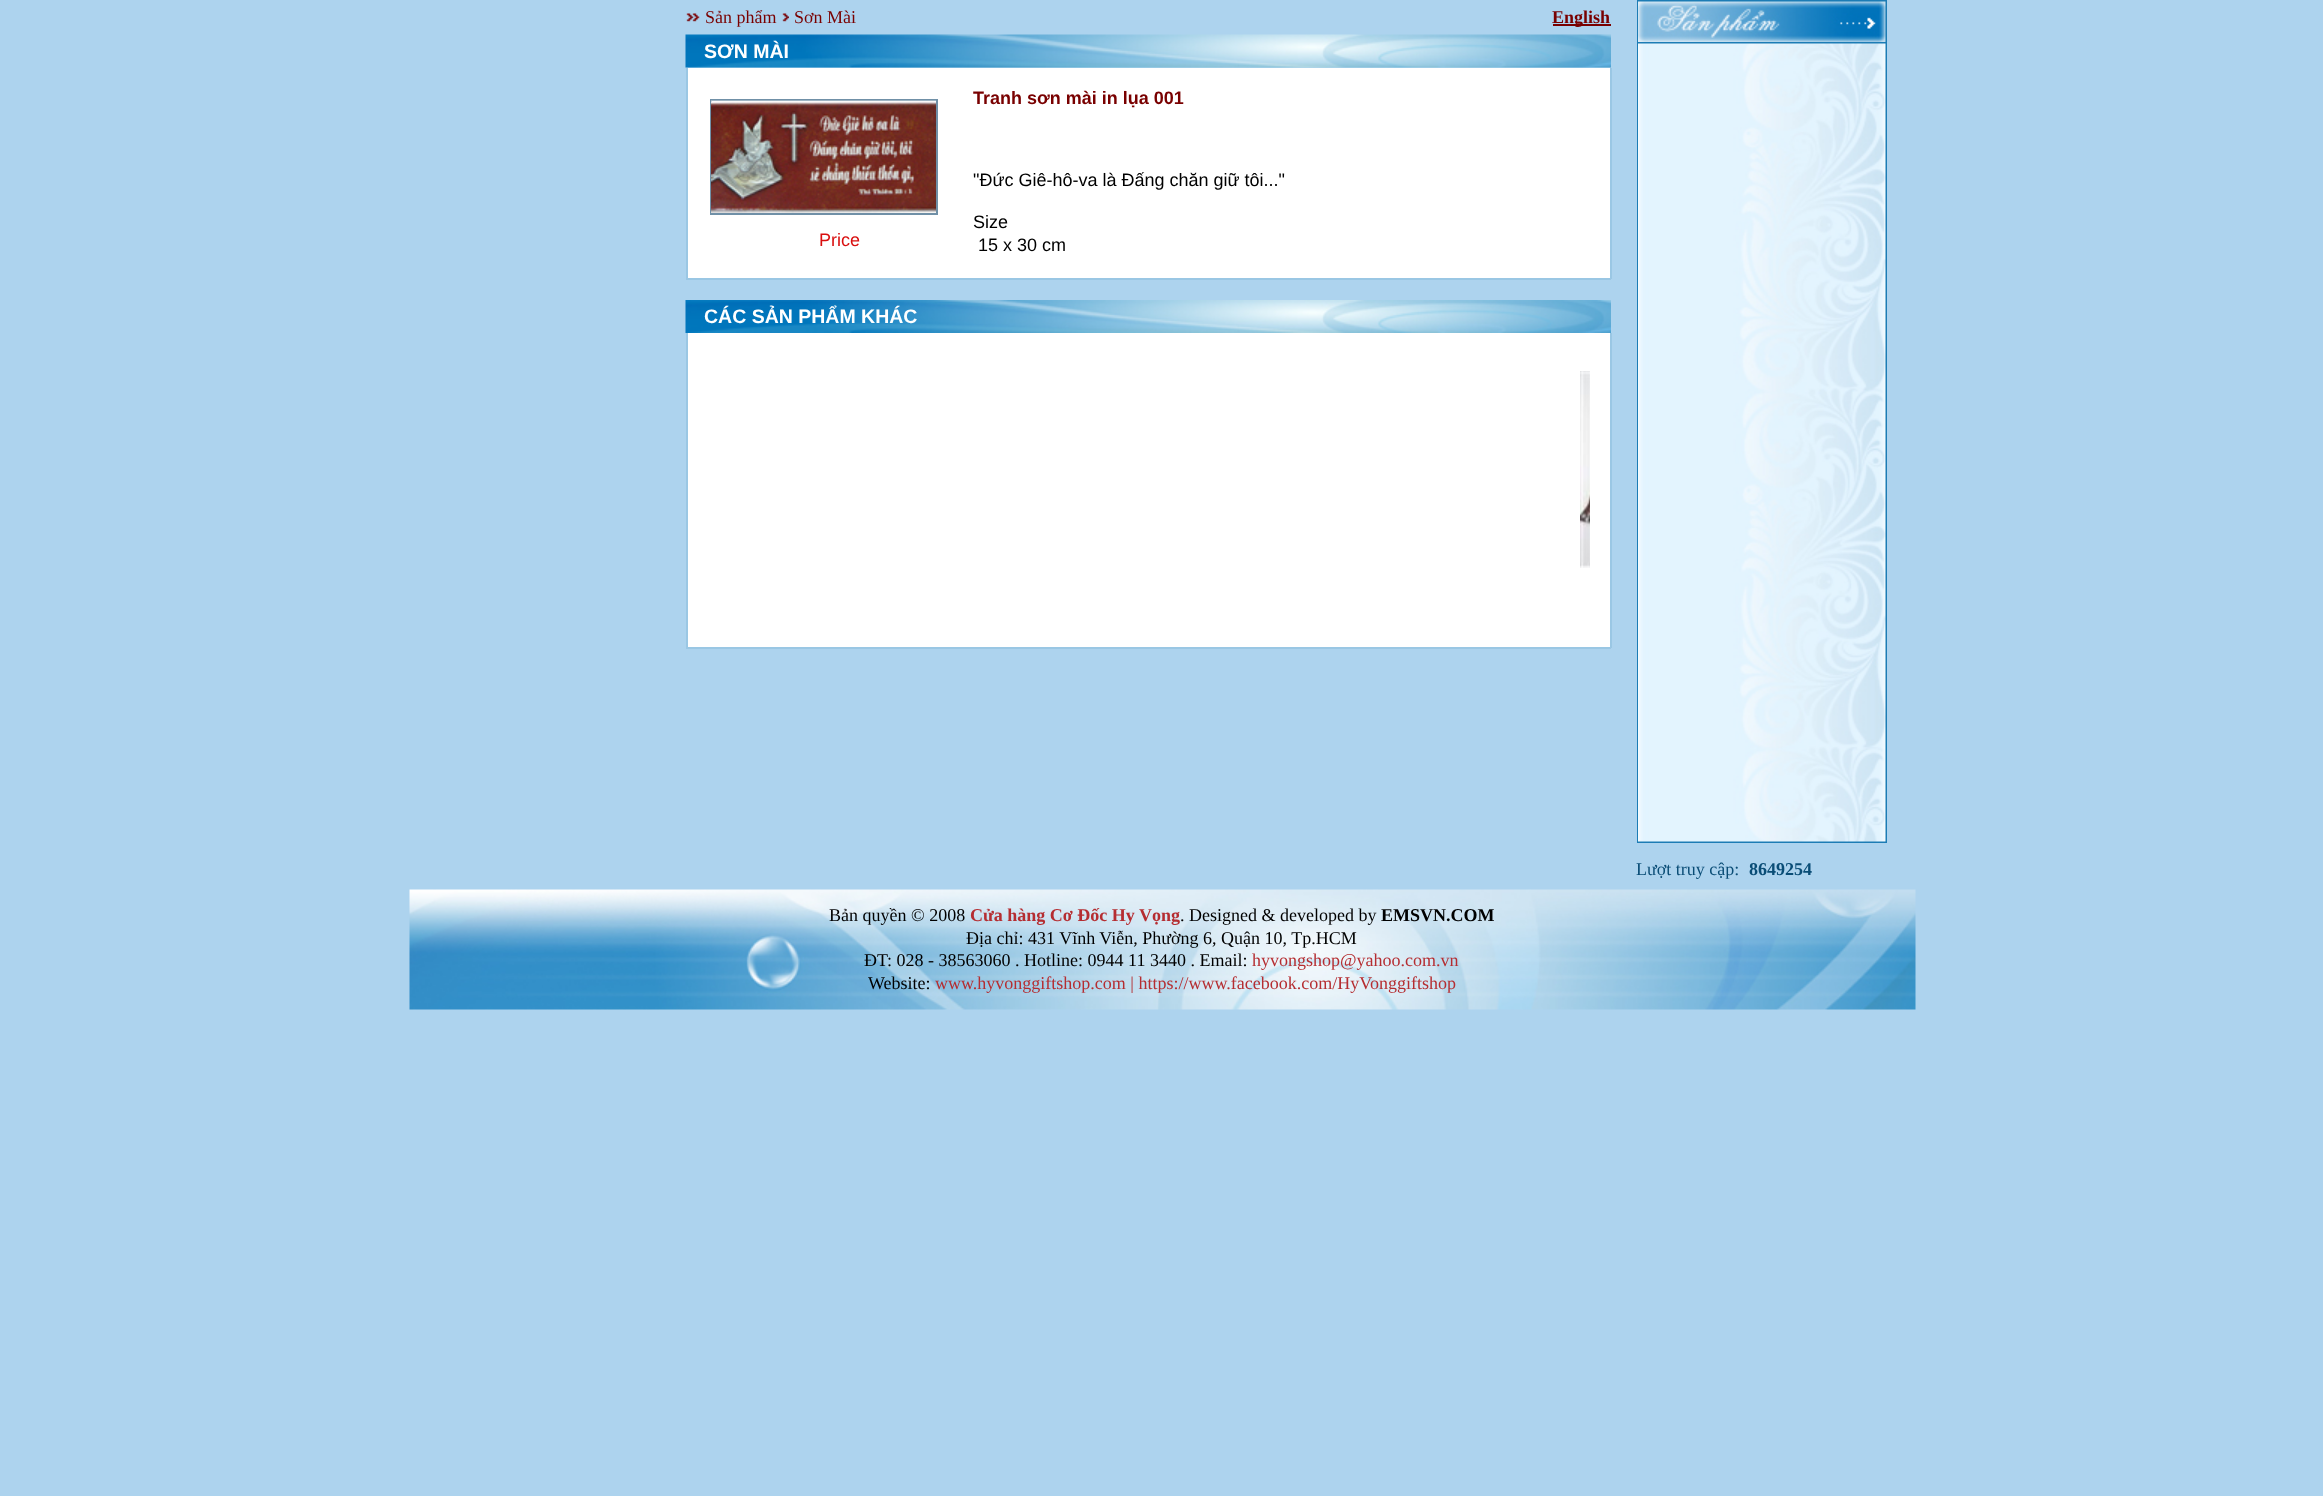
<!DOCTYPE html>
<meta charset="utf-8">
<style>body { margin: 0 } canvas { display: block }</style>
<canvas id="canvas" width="2323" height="1496"></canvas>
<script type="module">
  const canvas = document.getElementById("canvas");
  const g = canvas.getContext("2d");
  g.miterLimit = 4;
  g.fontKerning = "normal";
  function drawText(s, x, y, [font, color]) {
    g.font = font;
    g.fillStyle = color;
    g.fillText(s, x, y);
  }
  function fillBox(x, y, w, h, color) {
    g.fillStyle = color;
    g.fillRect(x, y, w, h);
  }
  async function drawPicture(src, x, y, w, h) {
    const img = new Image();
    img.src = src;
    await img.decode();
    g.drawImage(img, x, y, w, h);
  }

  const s1 = ["18px Liberation Serif", "#790000"];
  const s2 = ["bold 18px Liberation Serif", "#790000"];
  const s3 = ["bold 19.5px Liberation Sans", "#FFFFFF"];
  const s4 = ["bold 18px Liberation Sans", "#790000"];
  const s5 = ["18px Liberation Sans", "#000000"];
  const s6 = ["18px Liberation Sans", "#D90E0E"];
  const s7 = ["18px Liberation Serif", "#0A4D76"];
  const s8 = ["bold 18px Liberation Serif", "#0A4D76"];
  const s9 = ["18px Liberation Serif", "#000000"];
  const s10 = ["bold 18px Liberation Serif", "#B52D31"];
  const s11 = ["bold 18px Liberation Serif", "#000000"];
  const s12 = ["18px Liberation Serif", "#B52D31"];

  fillBox(0, 0, 2323, 1496, "#ADD3EE");
  await drawPicture("pic1.png", 686, 13, 14, 9);
  drawText("Sản phẩm", 705, 23, s1);
  await drawPicture("pic2.png", 782, 13, 7, 9);
  drawText("Sơn Mài", 794, 23, s1);
  fillBox(1553, 24, 58, 2, "#790000");
  drawText("English", 1552, 23, s2);
  await drawPicture("pic3.png", 685, 34, 926, 34);
  drawText("SƠN MÀI", 704, 58, s3);
  fillBox(688, 68, 922, 210, "#FFFFFF");
  fillBox(1610, 68, 2, 211, "#9AC7E4");
  fillBox(686, 278, 925, 2, "#9AC7E4");
  fillBox(686, 68, 2, 211, "#9AC7E4");
  drawText("Tranh sơn mài in lụa 001", 973, 104, s4);
  drawText("\"Đức Giê-hô-va là Đấng chăn giữ tôi...\"", 973, 186, s5);
  g.strokeStyle = "#7090A7";
  g.lineWidth = 2;
  g.strokeRect(711, 100, 226, 114);
  await drawPicture("pic4.png", 711, 100, 225, 113);
  drawText("Price", 819, 246, s6);
  drawText("Size", 973, 228, s5);
  drawText("15 x 30 cm", 978, 251, s5);
  await drawPicture("pic5.png", 685, 300, 926, 33);
  drawText("CÁC SẢN PHẨM KHÁC", 704, 323, s3);
  fillBox(688, 333, 922, 314, "#FFFFFF");
  fillBox(1610, 333, 2, 315, "#9AC7E4");
  fillBox(686, 647, 925, 2, "#9AC7E4");
  fillBox(686, 333, 2, 315, "#9AC7E4");
  await drawPicture("pic6.png", 1580, 371, 10, 197);
  fillBox(1637, 0, 250, 843, "#1C7CB5");
  await drawPicture("pic7.png", 1638, 1, 248, 41);
  await drawPicture("pic8.png", 1638, 43, 248, 799);
  drawText("Lượt truy cập:", 1636, 875, s7);
  drawText("8649254", 1749, 875, s8);
  await drawPicture("pic9.png", 409, 889, 1507, 121);
  drawText("Bản quyền © 2008", 829, 921, s9);
  drawText("Cửa hàng Cơ Đốc Hy Vọng", 970, 921, s10);
  drawText(". Designed & developed by", 1180, 921, s9);
  drawText("EMSVN.COM", 1381, 921, s11);
  drawText("Địa chỉ: 431 Vĩnh Viễn, Phường 6, Quận 10, Tp.HCM", 966, 944, s9);
  drawText("ĐT: 028 - 38563060 . Hotline: 0944 11 3440 . Email:", 864, 966, s9);
  drawText("hyvongshop@yahoo.com.vn", 1252, 966, s12);
  drawText("Website:", 868, 989, s9);
  drawText("www.hyvonggiftshop.com | https://www.facebook.com/HyVonggiftshop", 935, 989, s12);
</script>
